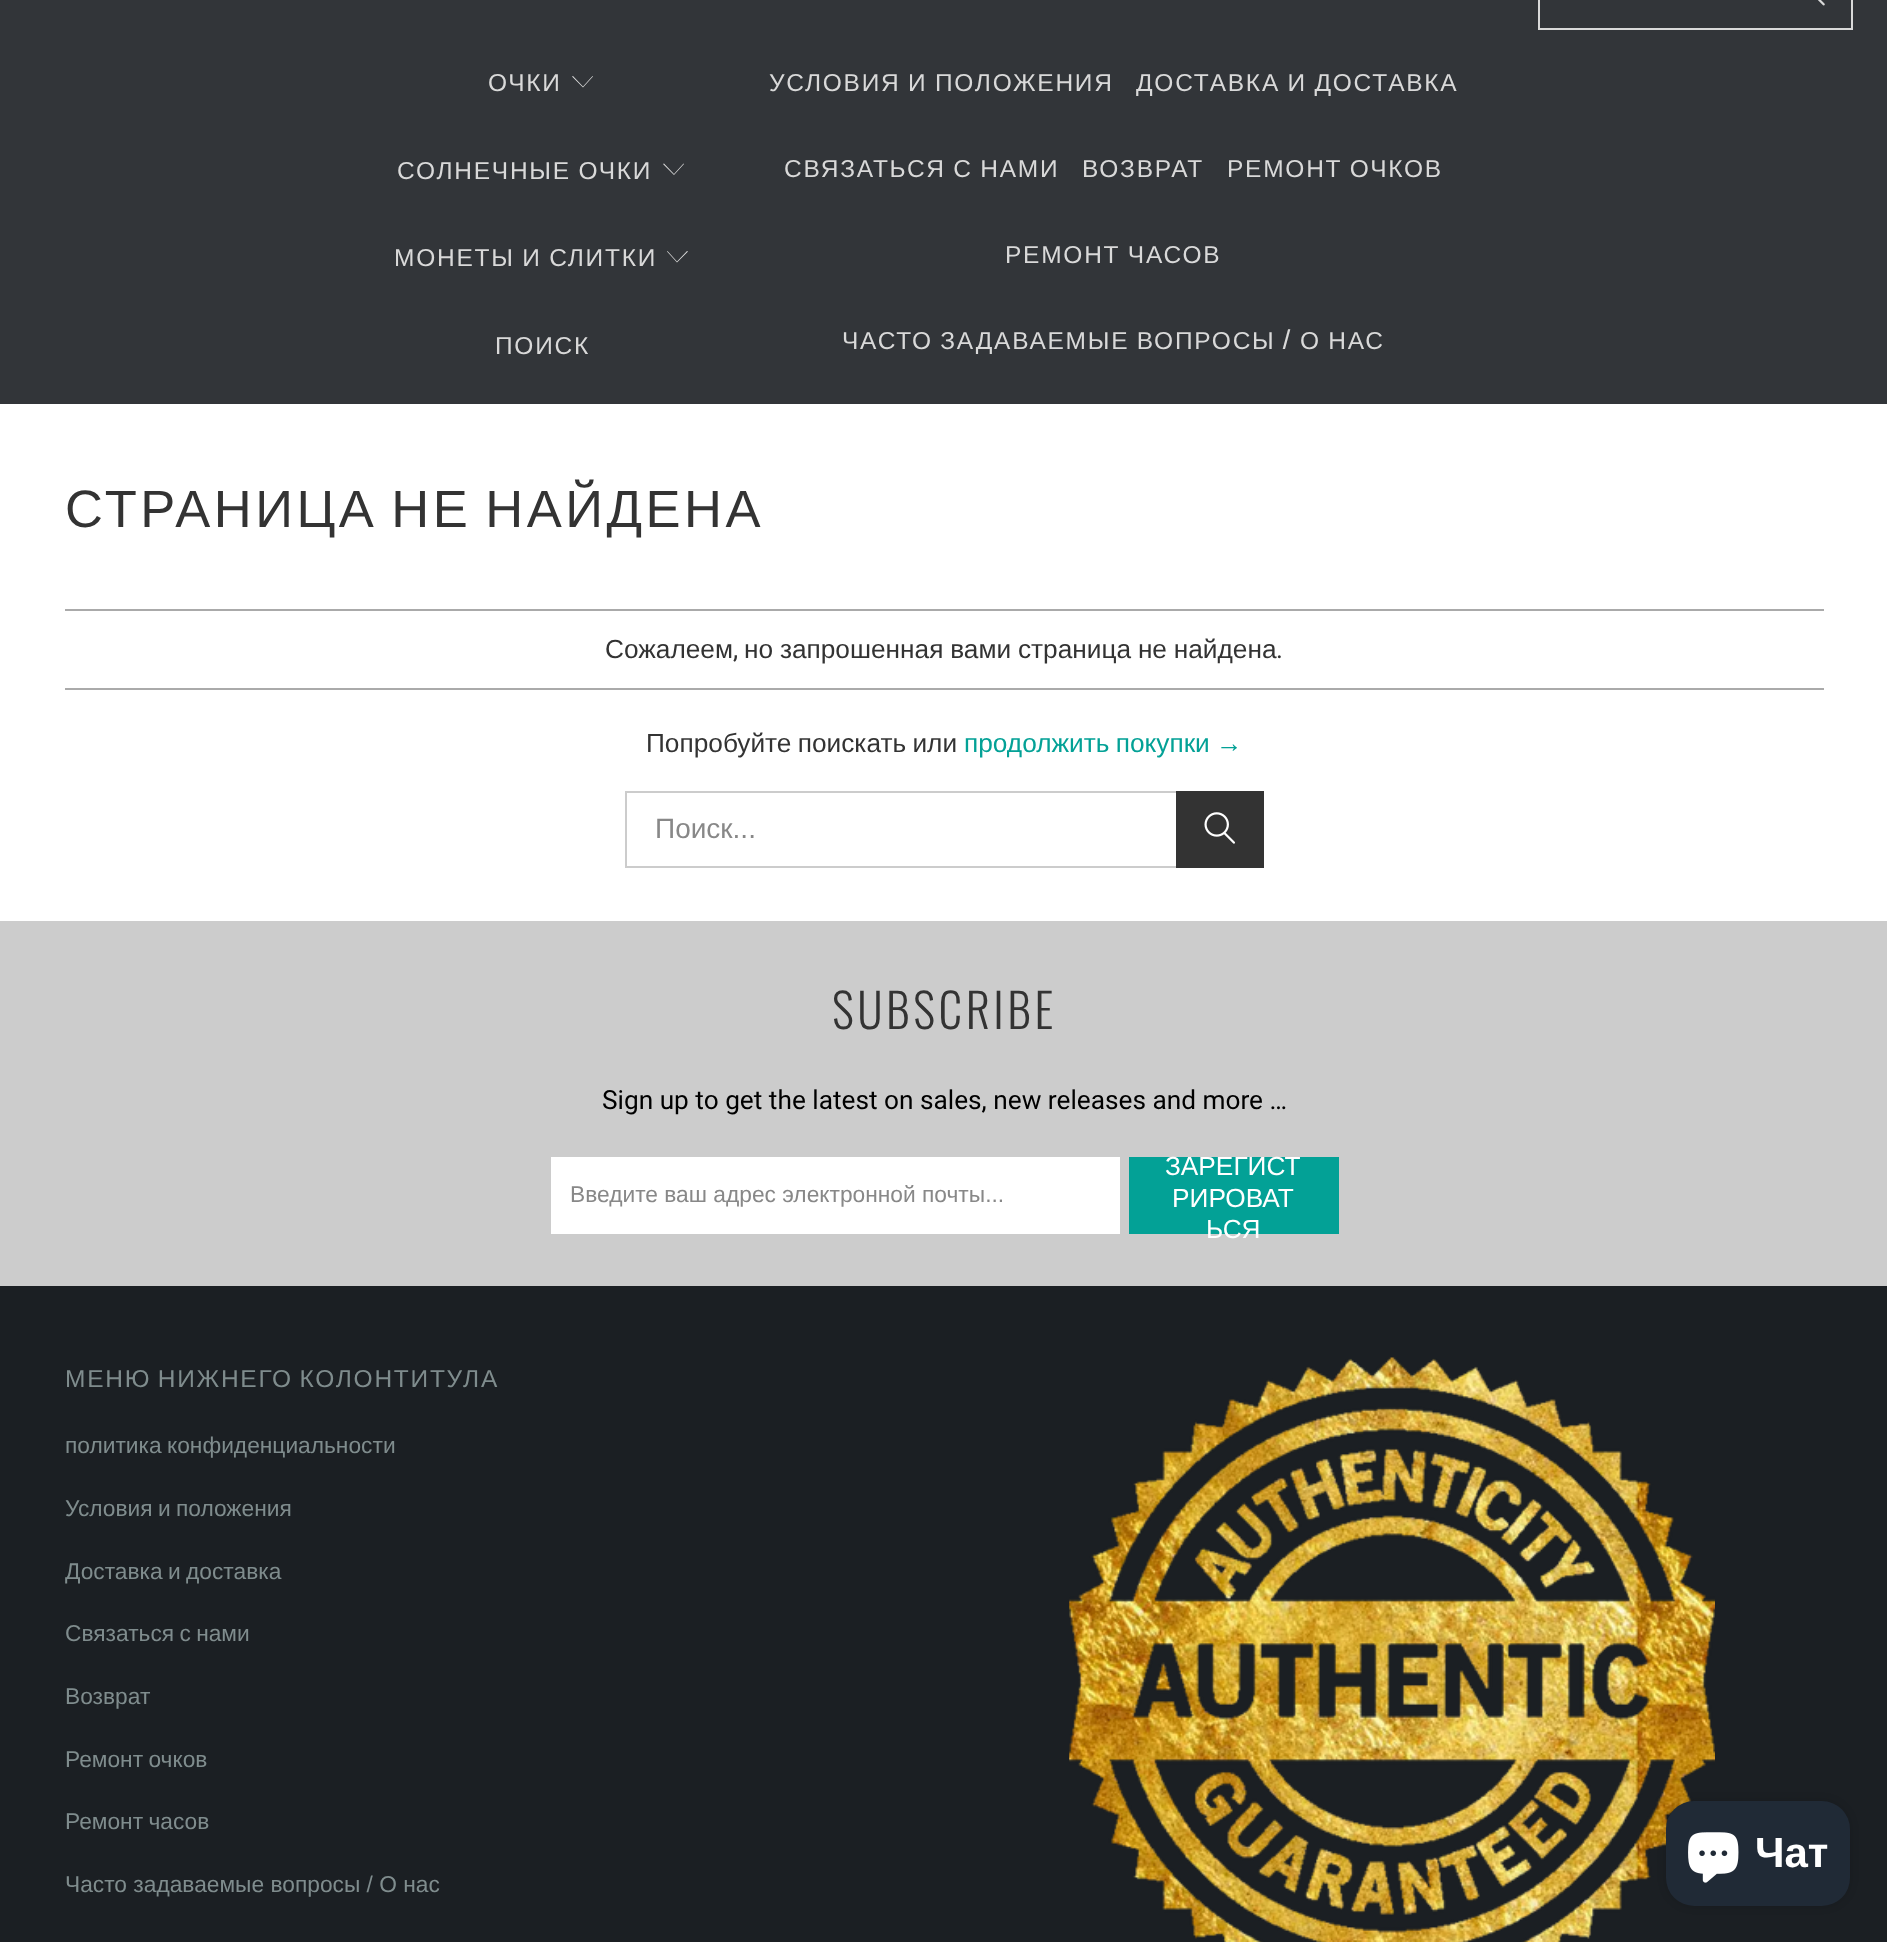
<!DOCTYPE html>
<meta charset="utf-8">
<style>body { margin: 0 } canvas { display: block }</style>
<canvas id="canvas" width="1887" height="1942"></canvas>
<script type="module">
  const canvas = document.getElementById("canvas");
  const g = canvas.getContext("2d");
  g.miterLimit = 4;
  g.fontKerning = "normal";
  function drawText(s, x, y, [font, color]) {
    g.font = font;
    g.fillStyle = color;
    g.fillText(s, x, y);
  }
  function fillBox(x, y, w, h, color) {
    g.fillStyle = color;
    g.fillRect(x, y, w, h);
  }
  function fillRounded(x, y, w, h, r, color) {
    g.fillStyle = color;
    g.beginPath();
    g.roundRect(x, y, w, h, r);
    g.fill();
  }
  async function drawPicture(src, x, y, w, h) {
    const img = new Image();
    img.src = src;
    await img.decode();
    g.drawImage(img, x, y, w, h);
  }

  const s1 = ["24.5px Liberation Sans", "#D9D9D9"];
  const s2 = ["24.5px Oswald", "#D9D9D9"];
  const s3 = ["52.5px Liberation Sans", "#333333"];
  const s4 = ["26.25px Liberation Sans", "#333333"];
  const s5 = ["26.25px Roboto", "#333333"];
  const s6 = ["26.25px Liberation Sans", "#03A196"];
  const s7 = ["28px Liberation Sans", "#888888"];
  const s8 = ["300 47.25px Oswald", "#333333"];
  const s9 = ["26.25px Roboto", "#000000"];
  const s10 = ["22.75px Liberation Sans", "#888888"];
  const s11 = ["26.25px Liberation Sans", "#FFFFFF"];
  const s12 = ["24.5px Liberation Sans", "#7F8C8D"];
  const s13 = ["22.75px Liberation Sans", "#7F8C8D"];
  const s14 = ["bold 42px Liberation Sans", "#FFFFFF"];

  fillBox(0, 0, 1887, 1942, "#FFFFFF");
  fillBox(0, 0, 1887, 404, "#323539");
  g.strokeStyle = "#D9D9D9";
  g.lineWidth = 2;
  g.strokeRect(1539, -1, 313, 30);
  await drawPicture("pic1.png", 1818, 0, 7, 6);
  g.letterSpacing = "1.75px";
  drawText("ОЧКИ", 488, 91, s1);
  g.beginPath();
  g.moveTo(583, 87.5);
  g.lineTo(572, 76.5);
  g.lineTo(573, 76);
  g.lineTo(583, 86.5);
  g.lineTo(592.5, 76);
  g.lineTo(593, 76.5);
  g.closePath();
  g.fill();
  g.wordSpacing = "-1px";
  drawText("СОЛНЕЧНЫЕ ОЧКИ", 397, 179, s1);
  g.beginPath();
  g.moveTo(674, 175);
  g.lineTo(663, 164);
  g.lineTo(664, 163.5);
  g.lineTo(674, 174);
  g.lineTo(683.5, 163.5);
  g.lineTo(684, 164);
  g.closePath();
  g.fill();
  drawText("МОНЕТЫ И СЛИТКИ", 394, 266, s1);
  g.beginPath();
  g.moveTo(677, 262.5);
  g.lineTo(667, 251.5);
  g.lineTo(667.5, 251);
  g.lineTo(677, 261.5);
  g.lineTo(687, 251);
  g.lineTo(688, 251.5);
  g.closePath();
  g.fill();
  g.wordSpacing = "0px";
  drawText("ПОИСК", 495, 354, s1);
  g.wordSpacing = "-1px";
  drawText("УСЛОВИЯ И ПОЛОЖЕНИЯ", 769, 91, s1);
  drawText("ДОСТАВКА И ДОСТАВКА", 1136, 91, s1);
  drawText("СВЯЗАТЬСЯ С НАМИ", 784, 177, s1);
  g.wordSpacing = "0px";
  drawText("ВОЗВРАТ", 1082, 177, s1);
  g.wordSpacing = "-1px";
  drawText("РЕМОНТ ОЧКОВ", 1227, 177, s1);
  drawText("РЕМОНТ ЧАСОВ", 1005, 263, s1);
  drawText("ЧАСТО ЗАДАВАЕМЫЕ ВОПРОСЫ", 842, 349, s1);
  g.wordSpacing = "0px";
  drawText("/", 1282, 349, s2);
  g.wordSpacing = "-1px";
  drawText("О НАС", 1300, 349, s1);
  g.letterSpacing = "3.5px";
  g.wordSpacing = "-4px";
  drawText("СТРАНИЦА НЕ НАЙДЕНА", 65, 527, s3);
  fillBox(65, 609, 1759, 2, "#AAAAAA");
  fillBox(65, 688, 1759, 2, "#AAAAAA");
  g.letterSpacing = "0px";
  g.wordSpacing = "0px";
  drawText("Сожалеем", 605, 658, s4);
  drawText(",", 733, 658, s5);
  g.wordSpacing = "-0.5px";
  drawText("но запрошенная вами страница не найдена", 744, 658, s4);
  g.wordSpacing = "0px";
  drawText(".", 1276, 658, s5);
  g.wordSpacing = "-1px";
  drawText("Попробуйте поискать или", 646, 752, s4);
  drawText("продолжить покупки →", 964, 752, s6);
  g.strokeStyle = "#CCCCCC";
  g.strokeRect(626, 792, 637, 75);
  g.wordSpacing = "0px";
  drawText("Поиск...", 655, 838, s7);
  fillBox(1176, 791, 88, 77, "#333333");
  await drawPicture("pic2.png", 1204, 812, 31, 32);
  fillBox(0, 921, 1887, 365, "#CCCCCC");
  g.letterSpacing = "3.5px";
  drawText("SUBSCRIBE", 832, 1029, s8);
  g.letterSpacing = "0px";
  drawText("Sign up to get the latest on sales, new releases and more …", 602, 1109, s9);
  fillBox(551, 1157, 569, 77, "#FFFFFF");
  drawText("Введите ваш адрес электронной почты...", 570, 1202, s10);
  fillBox(1129, 1157, 210, 77, "#03A196");
  drawText("ЗАРЕГИСТ", 1165, 1175, s11);
  drawText("РИРОВАТ", 1172, 1207, s11);
  drawText("ЬСЯ", 1206, 1238, s11);
  fillBox(0, 1286, 1887, 656, "#1B1F23");
  g.letterSpacing = "1.75px";
  g.wordSpacing = "-2px";
  drawText("МЕНЮ НИЖНЕГО КОЛОНТИТУЛА", 65, 1387, s12);
  g.letterSpacing = "0px";
  g.wordSpacing = "-1px";
  drawText("политика конфиденциальности", 65, 1453, s13);
  drawText("Условия и положения", 65, 1516, s13);
  drawText("Доставка и доставка", 65, 1579, s13);
  drawText("Связаться с нами", 65, 1641, s13);
  g.wordSpacing = "0px";
  drawText("Возврат", 65, 1704, s13);
  g.wordSpacing = "-1px";
  drawText("Ремонт очков", 65, 1767, s13);
  drawText("Ремонт часов", 65, 1829, s13);
  g.wordSpacing = "0px";
  drawText("Часто задаваемые вопросы / О нас", 65, 1892, s13);
  await drawPicture("pic3.png", 1069, 1357, 646, 585);
  g.fillStyle = "rgba(0, 0, 0, 0.15)";
  g.filter = "blur(4.5px)";
  g.beginPath();
  g.roundRect(1666, 1801, 184, 105, 28);
  g.fill();
  g.filter = "none";
  fillRounded(1666, 1801, 184, 105, 28, "#202A36");
  await drawPicture("pic4.png", 1688, 1832, 51, 51);
  drawText("Чат", 1755, 1867, s14);
</script>
